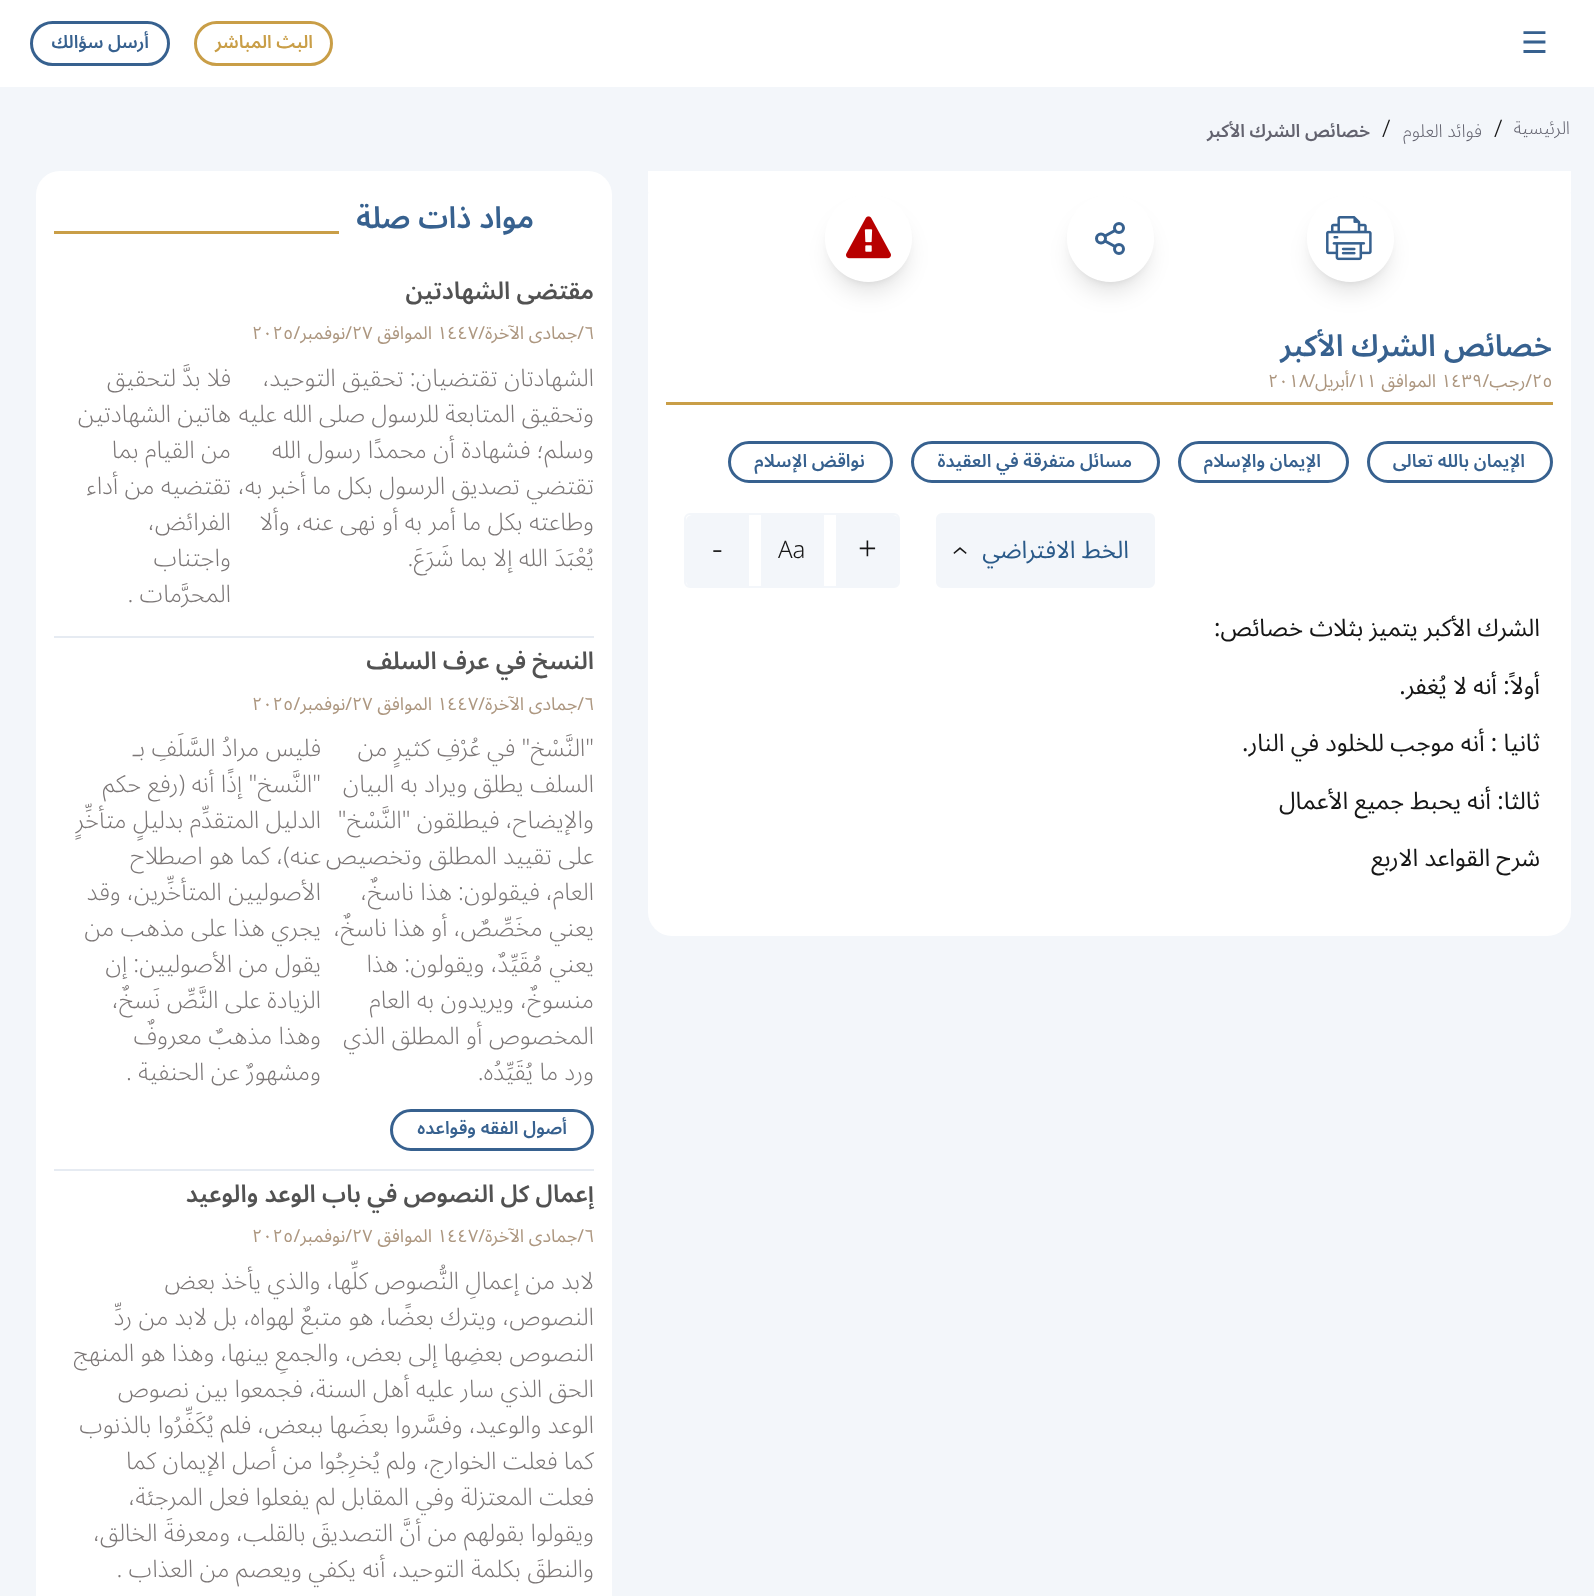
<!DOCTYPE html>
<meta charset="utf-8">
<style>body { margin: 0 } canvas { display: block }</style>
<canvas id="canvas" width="1594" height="1596"></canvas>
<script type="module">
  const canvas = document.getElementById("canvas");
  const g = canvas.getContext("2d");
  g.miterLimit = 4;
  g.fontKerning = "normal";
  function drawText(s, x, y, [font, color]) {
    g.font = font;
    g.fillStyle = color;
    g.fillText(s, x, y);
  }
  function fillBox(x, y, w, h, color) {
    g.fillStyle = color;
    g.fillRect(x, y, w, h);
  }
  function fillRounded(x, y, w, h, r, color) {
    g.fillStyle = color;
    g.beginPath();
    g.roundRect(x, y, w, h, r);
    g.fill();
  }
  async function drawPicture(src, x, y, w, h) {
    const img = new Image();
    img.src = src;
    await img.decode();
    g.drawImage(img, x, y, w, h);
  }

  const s1 = ["30px DejaVu Sans", "#37618F"];
  const s2 = ["600 18px Noto Sans Arabic", "#C99E47"];
  const s3 = ["600 18px Noto Sans Arabic", "#37618F"];
  const s4 = ["300 18px Noto Sans Arabic", "#63636F"];
  const s5 = ["300 24px Noto Sans Arabic", "#161616"];
  const s6 = ["600 18px Noto Sans Arabic", "#63636F"];
  const s7 = ["600 30px Noto Sans Arabic", "#37618F"];
  const s8 = ["18px Noto Sans Arabic", "#AD9780"];
  const s9 = ["24px Noto Sans Arabic", "#2A5A89"];
  const s10 = ["300 33px Noto Sans Arabic", "#161616"];
  const s11 = ["24px Noto Sans Arabic", "#161616"];
  const s12 = ["600 24px Noto Sans Arabic", "#525252"];
  const s13 = ["300 24px Noto Sans Arabic", "#7B7676"];

  fillBox(0, 0, 1594, 1596, "#F3F6FA");
  fillBox(0, 0, 1594, 87, "#FFFFFF");
  drawText("☰", 1521, 53, s1);
  g.beginPath();
  g.roundRect(195.5, 22.5, 136, 42, 21);
  g.strokeStyle = "#C99E47";
  g.lineWidth = 3;
  g.stroke();
  g.direction = "rtl";
  drawText("البث المباشر", 313, 48, s2);
  g.beginPath();
  g.roundRect(31.5, 22.5, 137, 42, 21);
  g.strokeStyle = "#37618F";
  g.stroke();
  drawText("أرسل سؤالك", 149, 48, s3);
  drawText("الرئيسية", 1570, 134, s4);
  g.direction = "ltr";
  drawText("/", 1494, 137, s5);
  g.direction = "rtl";
  drawText("فوائد العلوم", 1482, 137, s4);
  g.direction = "ltr";
  drawText("/", 1382, 137, s5);
  g.direction = "rtl";
  drawText("خصائص الشرك الأكبر", 1370, 137, s6);
  fillRounded(648, 171, 923, 765, 24, "#FFFFFF");
  fillBox(648, 171, 923, 21, "#FFFFFF");
  g.save();
  g.beginPath();
  g.moveTo(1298, 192);
  g.lineTo(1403, 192);
  g.lineTo(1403, 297);
  g.lineTo(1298, 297);
  g.closePath();
  g.moveTo(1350.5, 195);
  g.bezierCurveTo(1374.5, 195, 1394, 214.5, 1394, 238.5);
  g.bezierCurveTo(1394, 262.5, 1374.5, 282, 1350.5, 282);
  g.bezierCurveTo(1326.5, 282, 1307, 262.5, 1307, 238.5);
  g.bezierCurveTo(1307, 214.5, 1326.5, 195, 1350.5, 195);
  g.closePath();
  g.clip("evenodd");
  g.fillStyle = "rgba(0, 0, 0, 0.1)";
  g.filter = "blur(4.5px)";
  g.beginPath();
  g.roundRect(1313, 207, 75, 75, 37.5);
  g.fill();
  g.filter = "none";
  g.restore();
  g.save();
  g.beginPath();
  g.moveTo(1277, 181);
  g.lineTo(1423, 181);
  g.lineTo(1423, 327);
  g.lineTo(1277, 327);
  g.closePath();
  g.moveTo(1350.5, 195);
  g.bezierCurveTo(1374.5, 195, 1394, 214.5, 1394, 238.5);
  g.bezierCurveTo(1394, 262.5, 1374.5, 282, 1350.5, 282);
  g.bezierCurveTo(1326.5, 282, 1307, 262.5, 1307, 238.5);
  g.bezierCurveTo(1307, 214.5, 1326.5, 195, 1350.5, 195);
  g.closePath();
  g.clip("evenodd");
  g.fillStyle = "rgba(0, 0, 0, 0.1)";
  g.filter = "blur(11px)";
  g.beginPath();
  g.roundRect(1311, 215, 78, 78, 39);
  g.fill();
  g.filter = "none";
  g.restore();
  await drawPicture("pic1.png", 1326, 216, 46, 45);
  g.save();
  g.beginPath();
  g.moveTo(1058, 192);
  g.lineTo(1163, 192);
  g.lineTo(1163, 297);
  g.lineTo(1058, 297);
  g.closePath();
  g.moveTo(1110.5, 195);
  g.bezierCurveTo(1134.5, 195, 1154, 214.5, 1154, 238.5);
  g.bezierCurveTo(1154, 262.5, 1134.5, 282, 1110.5, 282);
  g.bezierCurveTo(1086.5, 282, 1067, 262.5, 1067, 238.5);
  g.bezierCurveTo(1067, 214.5, 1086.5, 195, 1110.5, 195);
  g.closePath();
  g.clip("evenodd");
  g.fillStyle = "rgba(0, 0, 0, 0.1)";
  g.filter = "blur(4.5px)";
  g.beginPath();
  g.roundRect(1073, 207, 75, 75, 37.5);
  g.fill();
  g.filter = "none";
  g.restore();
  g.save();
  g.beginPath();
  g.moveTo(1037, 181);
  g.lineTo(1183, 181);
  g.lineTo(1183, 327);
  g.lineTo(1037, 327);
  g.closePath();
  g.moveTo(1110.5, 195);
  g.bezierCurveTo(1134.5, 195, 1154, 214.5, 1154, 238.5);
  g.bezierCurveTo(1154, 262.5, 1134.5, 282, 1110.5, 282);
  g.bezierCurveTo(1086.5, 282, 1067, 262.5, 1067, 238.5);
  g.bezierCurveTo(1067, 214.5, 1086.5, 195, 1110.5, 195);
  g.closePath();
  g.clip("evenodd");
  g.fillStyle = "rgba(0, 0, 0, 0.1)";
  g.filter = "blur(11px)";
  g.beginPath();
  g.roundRect(1071, 215, 78, 78, 39);
  g.fill();
  g.filter = "none";
  g.restore();
  g.beginPath();
  g.arc(1119, 228, 4.5, 0, Math.PI * 2);
  g.stroke();
  g.beginPath();
  g.arc(1101, 238.5, 4.5, 0, Math.PI * 2);
  g.stroke();
  g.beginPath();
  g.arc(1119, 249, 4.5, 0, Math.PI * 2);
  g.stroke();
  g.beginPath();
  g.moveTo(1105, 241);
  g.lineTo(1115, 246.5);
  g.moveTo(1115, 230.5);
  g.lineTo(1105, 236);
  g.lineCap = "round";
  g.lineJoin = "round";
  g.stroke();
  g.save();
  g.beginPath();
  g.moveTo(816, 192);
  g.lineTo(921, 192);
  g.lineTo(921, 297);
  g.lineTo(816, 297);
  g.closePath();
  g.moveTo(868.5, 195);
  g.bezierCurveTo(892.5, 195, 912, 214.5, 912, 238.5);
  g.bezierCurveTo(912, 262.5, 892.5, 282, 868.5, 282);
  g.bezierCurveTo(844.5, 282, 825, 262.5, 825, 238.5);
  g.bezierCurveTo(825, 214.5, 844.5, 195, 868.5, 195);
  g.closePath();
  g.clip("evenodd");
  g.fillStyle = "rgba(0, 0, 0, 0.1)";
  g.filter = "blur(4.5px)";
  g.beginPath();
  g.roundRect(831, 207, 75, 75, 37.5);
  g.fill();
  g.filter = "none";
  g.restore();
  g.save();
  g.beginPath();
  g.moveTo(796, 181);
  g.lineTo(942, 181);
  g.lineTo(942, 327);
  g.lineTo(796, 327);
  g.closePath();
  g.moveTo(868.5, 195);
  g.bezierCurveTo(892.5, 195, 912, 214.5, 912, 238.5);
  g.bezierCurveTo(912, 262.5, 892.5, 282, 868.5, 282);
  g.bezierCurveTo(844.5, 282, 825, 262.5, 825, 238.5);
  g.bezierCurveTo(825, 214.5, 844.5, 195, 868.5, 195);
  g.closePath();
  g.clip("evenodd");
  g.fillStyle = "rgba(0, 0, 0, 0.1)";
  g.filter = "blur(11px)";
  g.beginPath();
  g.roundRect(830, 215, 78, 78, 39);
  g.fill();
  g.filter = "none";
  g.restore();
  await drawPicture("pic2.png", 846, 216, 45, 43);
  fillBox(666, 402, 887, 3, "#C99E47");
  drawText("خصائص الشرك الأكبر", 1552, 356, s7);
  g.direction = "ltr";
  drawText("٢٥", 1532, 387, s8);
  g.direction = "rtl";
  drawText("/رجب/", 1532, 387, s8);
  g.direction = "ltr";
  drawText("١٤٣٩", 1441, 387, s8);
  g.direction = "rtl";
  drawText("الموافق", 1436, 387, s8);
  g.direction = "ltr";
  drawText("١١", 1356, 387, s8);
  g.direction = "rtl";
  drawText("/أبريل/", 1356, 387, s8);
  g.direction = "ltr";
  drawText("٢٠١٨", 1268, 387, s8);
  g.beginPath();
  g.roundRect(1368.5, 442.5, 183, 39, 19.5);
  g.lineJoin = "miter";
  g.stroke();
  g.direction = "rtl";
  drawText("الإيمان بالله تعالى", 1525, 467, s3);
  g.beginPath();
  g.roundRect(1179.5, 442.5, 168, 39, 19.5);
  g.stroke();
  drawText("الإيمان والإسلام", 1321, 467, s3);
  g.beginPath();
  g.roundRect(912.5, 442.5, 246, 39, 19.5);
  g.stroke();
  drawText("مسائل متفرقة في العقيدة", 1132, 467, s3);
  g.beginPath();
  g.roundRect(729.5, 442.5, 162, 39, 19.5);
  g.stroke();
  drawText("نواقض الإسلام", 865, 467, s3);
  g.fillStyle = "#F3F6FA";
  g.beginPath();
  g.roundRect(937, 514, 217, 73, 5);
  g.fill();
  g.strokeStyle = "#F3F6FA";
  g.lineWidth = 2;
  g.stroke();
  drawText("الخط الافتراضي", 1129, 558, s9);
  g.direction = "ltr";
  g.font = "300 33px Noto Sans Arabic";
  g.fillStyle = "#161616";
  g.save();
  g.translate(969, 555);
  g.rotate(-90 * Math.PI / 180);
  g.fillText("›", 0, 0);
  g.restore();
  g.beginPath();
  g.roundRect(685, 514, 214, 73, 5);
  g.stroke();
  g.fillStyle = "#F3F6FA";
  g.beginPath();
  g.roundRect(836, 515, 63, 72, [0, 6, 6, 0]);
  g.fill();
  drawText("+", 858, 560, s10);
  fillBox(761, 515, 63, 71, "#F3F6FA");
  drawText("Aa", 778, 558, s5);
  g.fillStyle = "#F3F6FA";
  g.beginPath();
  g.roundRect(686, 515, 63, 72, [6, 0, 0, 6]);
  g.fill();
  drawText("-", 712, 560, s10);
  g.direction = "rtl";
  drawText("الشرك الأكبر يتميز بثلاث خصائص:", 1540, 636, s11);
  drawText("أولاً: أنه لا يُغفر.", 1540, 694, s11);
  drawText("ثانيا : أنه موجب للخلود في النار.", 1540, 751, s11);
  drawText("ثالثا: أنه يحبط جميع الأعمال", 1540, 809, s11);
  drawText("شرح القواعد الاربع", 1540, 866, s11);
  fillRounded(36, 171, 576, 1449, 24, "#FFFFFF");
  drawText("مواد ذات صلة", 534, 228, s7);
  fillBox(54, 231, 285, 3, "#C99E47");
  fillBox(54, 636, 540, 2, "#E6EBF2");
  drawText("مقتضى الشهادتين", 594, 299, s12);
  g.direction = "ltr";
  drawText("٦", 584, 339, s8);
  g.direction = "rtl";
  drawText("/جمادى الآخرة/", 584, 339, s8);
  g.direction = "ltr";
  drawText("١٤٤٧", 437, 339, s8);
  g.direction = "rtl";
  drawText("الموافق", 432, 339, s8);
  g.direction = "ltr";
  drawText("٢٧", 352, 339, s8);
  g.direction = "rtl";
  drawText("/نوفمبر/", 352, 339, s8);
  g.direction = "ltr";
  drawText("٢٠٢٥", 252, 339, s8);
  g.direction = "rtl";
  drawText("الشهادتان تقتضيان: تحقيق التوحيد،", 594, 386, s13);
  drawText("وتحقيق المتابعة للرسول صلى الله عليه", 594, 422, s13);
  drawText("وسلم؛ فشهادة أن محمدًا رسول الله", 594, 458, s13);
  drawText("تقتضي تصديق الرسول بكل ما أخبر به،", 594, 494, s13);
  drawText("وطاعته بكل ما أمر به أو نهى عنه، وألا", 594, 530, s13);
  drawText("يُعْبَدَ الله إلا بما شَرَعَ.", 594, 566, s13);
  drawText("فلا بدَّ لتحقيق", 231, 386, s13);
  drawText("هاتين الشهادتين", 231, 422, s13);
  drawText("من القيام بما", 231, 458, s13);
  drawText("تقتضيه من أداء", 231, 494, s13);
  drawText("الفرائض،", 231, 530, s13);
  drawText("واجتناب", 231, 566, s13);
  drawText("المحرَّمات .", 231, 602, s13);
  fillBox(54, 1169, 540, 2, "#E6EBF2");
  drawText("النسخ في عرف السلف", 594, 669, s12);
  g.direction = "ltr";
  drawText("٦", 584, 710, s8);
  g.direction = "rtl";
  drawText("/جمادى الآخرة/", 584, 710, s8);
  g.direction = "ltr";
  drawText("١٤٤٧", 437, 710, s8);
  g.direction = "rtl";
  drawText("الموافق", 432, 710, s8);
  g.direction = "ltr";
  drawText("٢٧", 352, 710, s8);
  g.direction = "rtl";
  drawText("/نوفمبر/", 352, 710, s8);
  g.direction = "ltr";
  drawText("٢٠٢٥", 252, 710, s8);
  g.direction = "rtl";
  drawText("\"النَّسْخ\" في عُرْفِ كثيرٍ من", 594, 756, s13);
  drawText("السلف يطلق ويراد به البيان", 594, 792, s13);
  drawText("والإيضاح، فيطلقون \"النَّسْخ\"", 594, 828, s13);
  drawText("على تقييد المطلق وتخصيص", 594, 864, s13);
  drawText("العام، فيقولون: هذا ناسخٌ،", 594, 900, s13);
  drawText("يعني مخَصِّصٌ، أو هذا ناسخٌ،", 594, 936, s13);
  drawText("يعني مُقَيِّدٌ، ويقولون: هذا", 594, 972, s13);
  drawText("منسوخٌ، ويريدون به العام", 594, 1008, s13);
  drawText("المخصوص أو المطلق الذي", 594, 1044, s13);
  drawText("ورد ما يُقَيِّدُه.", 594, 1080, s13);
  drawText("فليس مرادُ السَّلَفِ بـ", 321, 756, s13);
  drawText("\"النَّسخ\" إذًا أنه (رفع حكم", 321, 792, s13);
  drawText("الدليل المتقدِّم بدليلٍ متأخِّرٍ", 321, 828, s13);
  drawText("عنه)، كما هو اصطلاح", 321, 864, s13);
  drawText("الأصوليين المتأخِّرين، وقد", 321, 900, s13);
  drawText("يجري هذا على مذهب من", 321, 936, s13);
  drawText("يقول من الأصوليين: إن", 321, 972, s13);
  drawText("الزيادة على النَّصِّ نَسخٌ،", 321, 1008, s13);
  drawText("وهذا مذهبٌ معروفٌ", 321, 1044, s13);
  drawText("ومشهورٌ عن الحنفية .", 321, 1080, s13);
  g.beginPath();
  g.roundRect(391.5, 1110.5, 201, 39, 19.5);
  g.strokeStyle = "#37618F";
  g.lineWidth = 3;
  g.stroke();
  drawText("أصول الفقه وقواعده", 567, 1134, s3);
  drawText("إعمال كل النصوص في باب الوعد والوعيد", 594, 1202, s12);
  g.direction = "ltr";
  drawText("٦", 584, 1242, s8);
  g.direction = "rtl";
  drawText("/جمادى الآخرة/", 584, 1242, s8);
  g.direction = "ltr";
  drawText("١٤٤٧", 437, 1242, s8);
  g.direction = "rtl";
  drawText("الموافق", 432, 1242, s8);
  g.direction = "ltr";
  drawText("٢٧", 352, 1242, s8);
  g.direction = "rtl";
  drawText("/نوفمبر/", 352, 1242, s8);
  g.direction = "ltr";
  drawText("٢٠٢٥", 252, 1242, s8);
  g.direction = "rtl";
  drawText("لابد من إعمالِ النُّصوص كلِّها، والذي يأخذ بعض", 594, 1289, s13);
  drawText("النصوص، ويترك بعضًا، هو متبعٌ لهواه، بل لابد من ردِّ", 594, 1325, s13);
  drawText("النصوص بعضِها إلى بعض، والجمعِ بينها، وهذا هو المنهج", 594, 1361, s13);
  drawText("الحق الذي سار عليه أهل السنة، فجمعوا بين نصوص", 594, 1397, s13);
  drawText("الوعد والوعيد، وفسَّروا بعضَها ببعض، فلم يُكَفِّرُوا بالذنوب", 594, 1433, s13);
  drawText("كما فعلت الخوارج، ولم يُخرِجُوا من أصل الإيمان كما", 594, 1469, s13);
  drawText("فعلت المعتزلة وفي المقابل لم يفعلوا فعل المرجئة،", 594, 1505, s13);
  drawText("ويقولوا بقولهم من أنَّ التصديقَ بالقلب، ومعرفةَ الخالق،", 594, 1541, s13);
  drawText("والنطقَ بكلمة التوحيد، أنه يكفي ويعصم من العذاب .", 594, 1577, s13);
</script>
